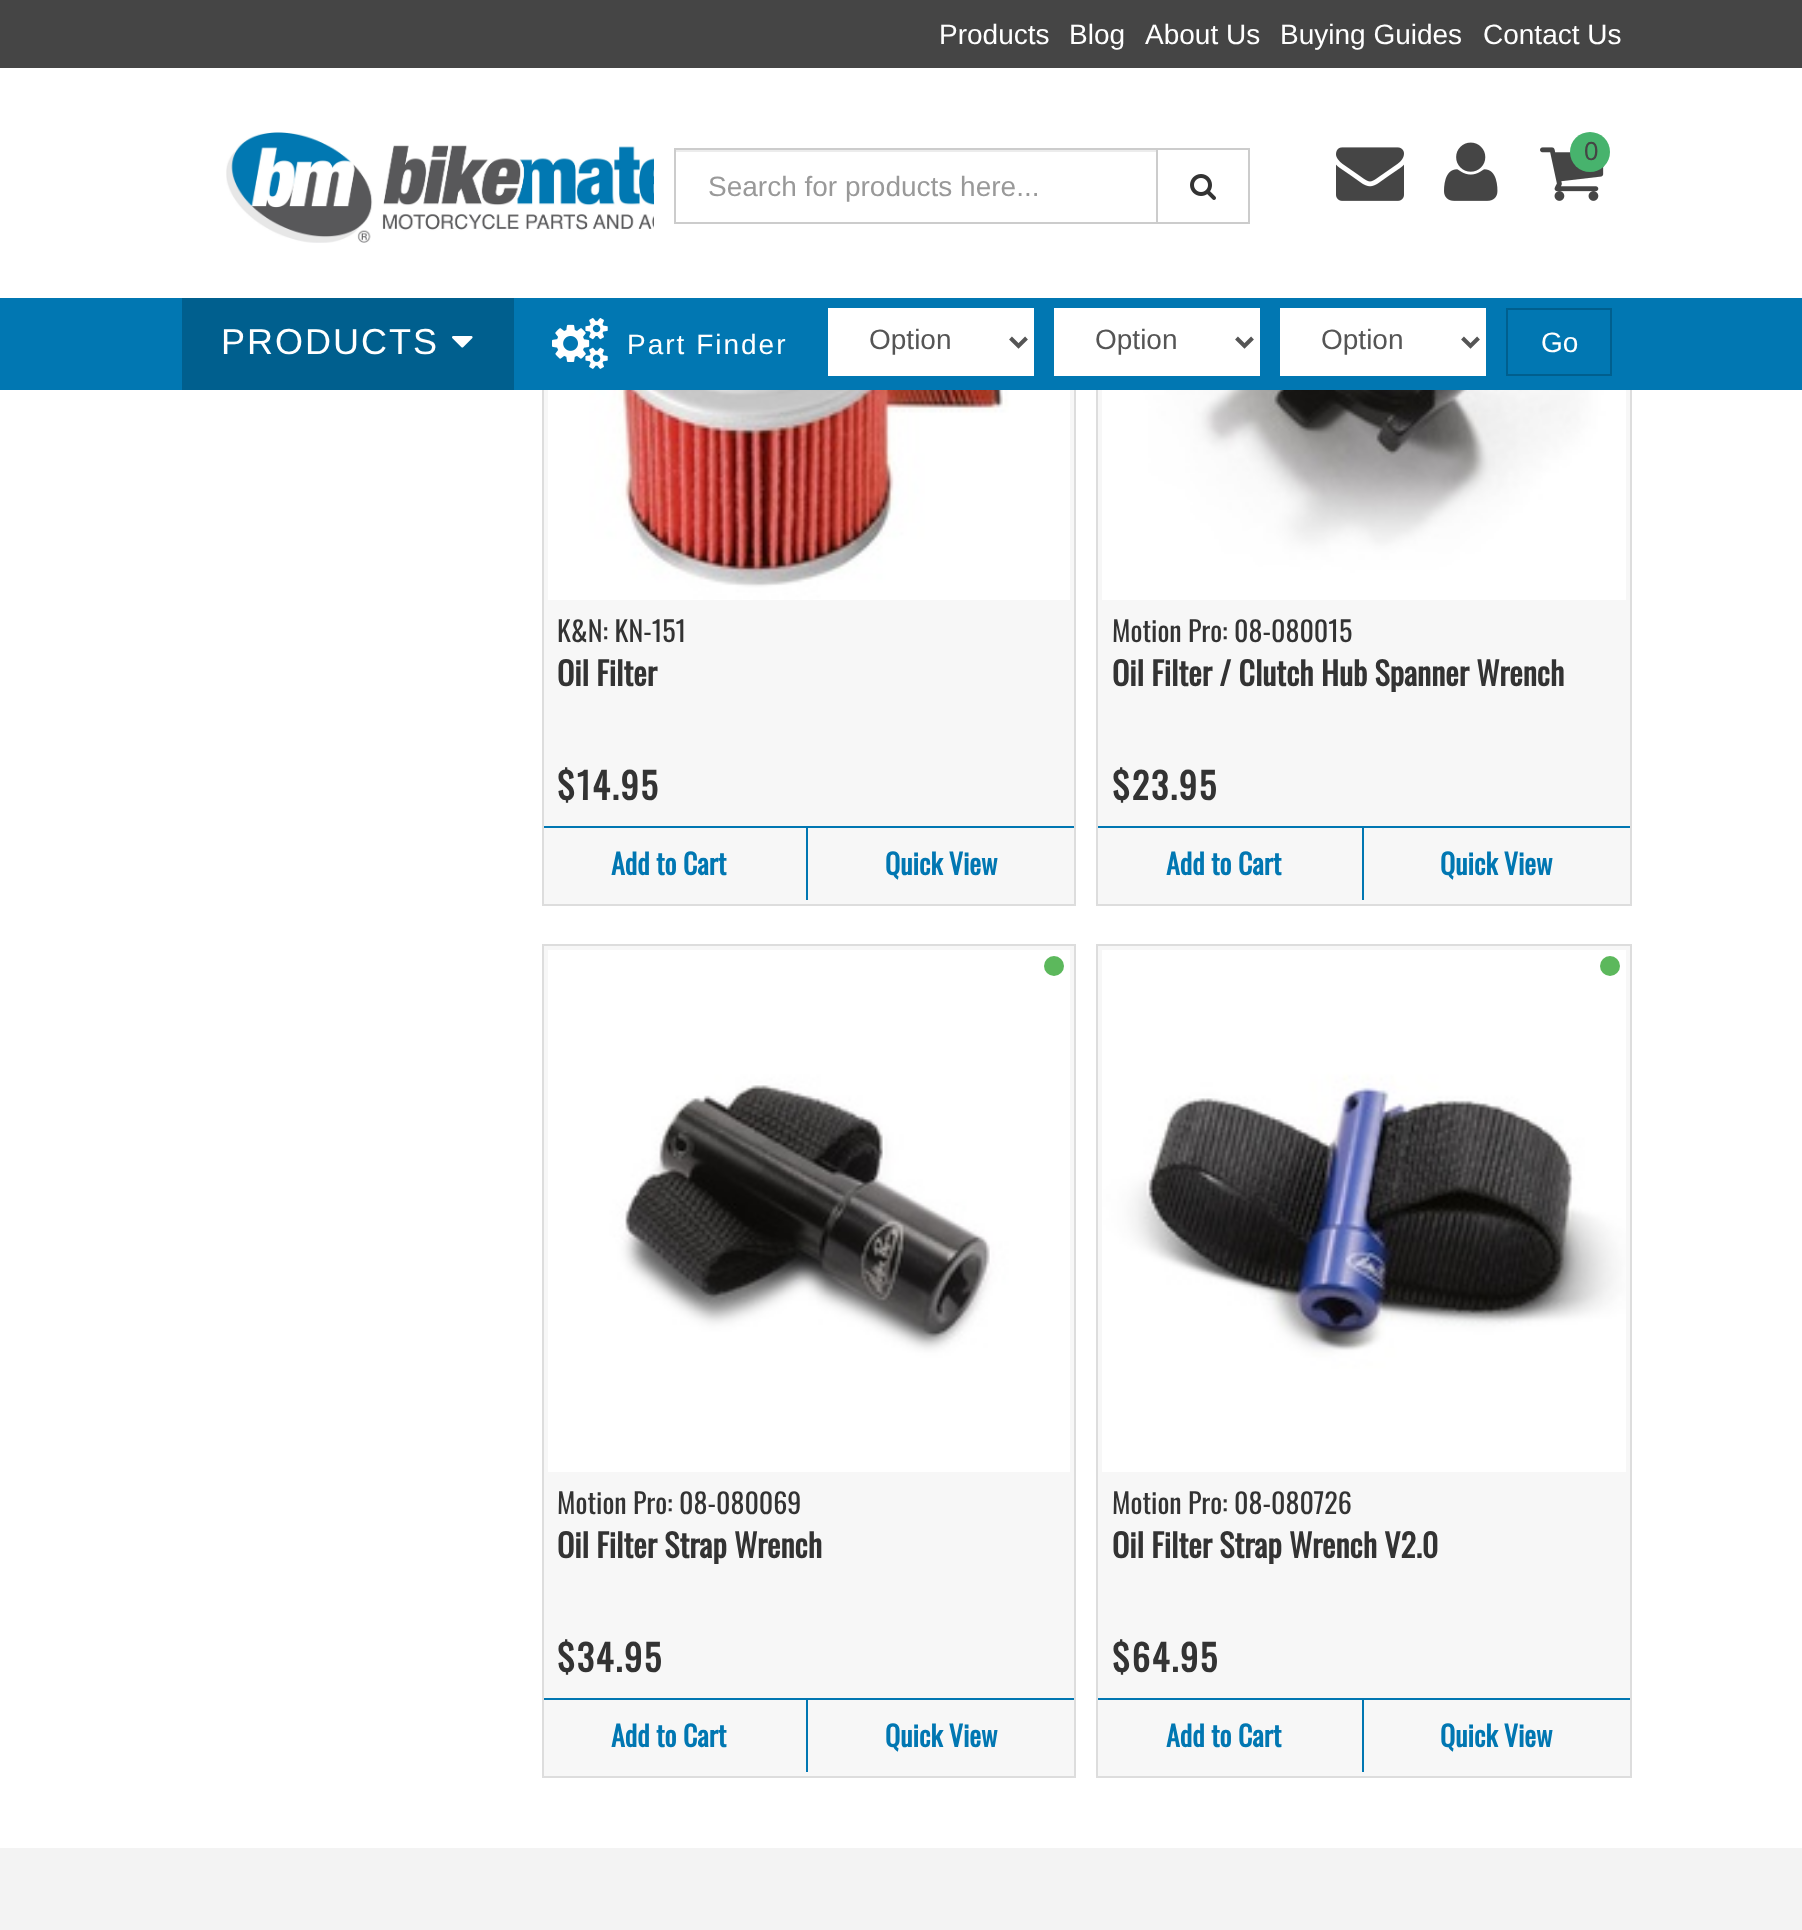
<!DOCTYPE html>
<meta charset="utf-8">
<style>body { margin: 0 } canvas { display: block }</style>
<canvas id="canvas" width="1802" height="1930"></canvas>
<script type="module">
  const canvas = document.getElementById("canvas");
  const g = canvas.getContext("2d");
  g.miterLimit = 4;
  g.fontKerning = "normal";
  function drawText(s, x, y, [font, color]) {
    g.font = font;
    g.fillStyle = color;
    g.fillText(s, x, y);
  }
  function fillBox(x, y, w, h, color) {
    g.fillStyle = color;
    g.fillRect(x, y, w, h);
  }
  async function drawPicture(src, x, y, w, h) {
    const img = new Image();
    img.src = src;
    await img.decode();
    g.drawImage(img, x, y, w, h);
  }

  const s1 = ["28px Liberation Sans", "#FFFFFF"];
  const s2 = ["26px Liberation Sans", "#454545"];
  const s3 = ["28px Liberation Sans", "#999999"];
  const s4 = ["36px Liberation Sans", "#FFFFFF"];
  const s5 = ["28px Liberation Sans", "#555555"];
  const s6 = ["28px Oswald", "#333333"];
  const s7 = ["bold 32px Oswald", "#333333"];
  const s8 = ["bold 36px Oswald", "#333333"];
  const s9 = ["bold 28px Oswald", "#0177B2"];

  fillBox(0, 0, 1802, 1930, "#FFFFFF");
  fillBox(0, 0, 1802, 68, "#454545");
  drawText("Products", 939, 44, s1);
  drawText("Blog", 1069, 44, s1);
  drawText("About Us", 1145, 44, s1);
  drawText("Buying Guides", 1280, 44, s1);
  drawText("Contact Us", 1483, 44, s1);
  fillBox(544, 390, 530, 514, "#F7F7F7");
  g.strokeStyle = "#DDDDDD";
  g.lineWidth = 2;
  g.strokeRect(543, 73, 532, 832);
  fillBox(1098, 390, 532, 514, "#F7F7F7");
  g.strokeRect(1097, 73, 534, 832);
  fillBox(542, 72, 1090, 226, "#FFFFFF");
  await drawPicture("pic1.png", 226, 132, 428, 111);
  await drawPicture("pic2.png", 1336, 147, 68, 54);
  await drawPicture("pic3.png", 1444, 142, 54, 59);
  await drawPicture("pic4.png", 1540, 147, 64, 54);
  g.fillStyle = "#47B36D";
  g.beginPath();
  g.arc(1590, 152, 20, 0, Math.PI * 2);
  g.fill();
  drawText("0", 1584, 160, s2);
  fillBox(676, 150, 480, 2, "#ECECEC");
  g.strokeStyle = "#CCCCCC";
  g.strokeRect(675, 149, 482, 74);
  drawText("Search for products here...", 708, 196, s3);
  g.strokeRect(1157, 149, 92, 74);
  await drawPicture("pic5.png", 1190, 174, 26, 26);
  fillBox(0, 298, 1802, 92, "#0177B2");
  fillBox(182, 298, 332, 92, "#005F8E");
  g.letterSpacing = "2px";
  drawText("PRODUCTS", 221, 354, s4);
  await drawPicture("pic6.png", 452, 336, 21, 12);
  await drawPicture("pic7.png", 552, 317, 56, 52);
  drawText("Part Finder", 627, 354, s1);
  fillBox(828, 308, 206, 68, "#FFFFFF");
  g.beginPath();
  g.moveTo(1010.5, 338);
  g.lineTo(1018.5, 346);
  g.lineTo(1026.5, 338);
  g.strokeStyle = "#555555";
  g.lineWidth = 4;
  g.stroke();
  g.letterSpacing = "0px";
  drawText("Option", 869, 349, s5);
  fillBox(1054, 308, 206, 68, "#FFFFFF");
  g.beginPath();
  g.moveTo(1236.5, 338);
  g.lineTo(1244.5, 346);
  g.lineTo(1252.5, 338);
  g.stroke();
  drawText("Option", 1095, 349, s5);
  fillBox(1280, 308, 206, 68, "#FFFFFF");
  g.beginPath();
  g.moveTo(1462.5, 338);
  g.lineTo(1470.5, 346);
  g.lineTo(1478.5, 338);
  g.stroke();
  drawText("Option", 1321, 349, s5);
  g.strokeStyle = "#005F8E";
  g.lineWidth = 2;
  g.strokeRect(1507, 309, 104, 66);
  drawText("Go", 1541, 352, s1);
  await drawPicture("pic8.png", 548, 390, 522, 210);
  drawText("K&N: KN-151", 557, 642, s6);
  drawText("Oil Filter", 557, 686, s7);
  g.letterSpacing = "2px";
  drawText("$14.95", 557, 800, s8);
  fillBox(544, 826, 530, 2, "#0177B2");
  fillBox(806, 828, 2, 72, "#0177B2");
  g.letterSpacing = "0px";
  drawText("Add to Cart", 611, 875, s9);
  drawText("Quick View", 885, 875, s9);
  await drawPicture("pic9.png", 1102, 390, 524, 210);
  drawText("Motion Pro: 08-080015", 1112, 642, s6);
  drawText("Oil Filter / Clutch Hub Spanner Wrench", 1112, 686, s7);
  g.letterSpacing = "2px";
  drawText("$23.95", 1112, 800, s8);
  fillBox(1098, 826, 532, 2, "#0177B2");
  fillBox(1362, 828, 2, 72, "#0177B2");
  g.letterSpacing = "0px";
  drawText("Add to Cart", 1166, 875, s9);
  drawText("Quick View", 1440, 875, s9);
  g.fillStyle = "#F7F7F7";
  g.beginPath();
  g.rect(543, 945, 532, 832);
  g.fill();
  g.strokeStyle = "#DDDDDD";
  g.stroke();
  await drawPicture("pic10.png", 548, 950, 522, 522);
  g.fillStyle = "#5CB85C";
  g.beginPath();
  g.arc(1054, 966, 10, 0, Math.PI * 2);
  g.fill();
  drawText("Motion Pro: 08-080069", 557, 1514, s6);
  drawText("Oil Filter Strap Wrench", 557, 1558, s7);
  g.letterSpacing = "2px";
  drawText("$34.95", 557, 1672, s8);
  fillBox(544, 1698, 530, 2, "#0177B2");
  fillBox(806, 1700, 2, 72, "#0177B2");
  g.letterSpacing = "0px";
  drawText("Add to Cart", 611, 1747, s9);
  drawText("Quick View", 885, 1747, s9);
  g.fillStyle = "#F7F7F7";
  g.beginPath();
  g.rect(1097, 945, 534, 832);
  g.fill();
  g.stroke();
  await drawPicture("pic11.png", 1102, 950, 524, 522);
  g.fillStyle = "#5CB85C";
  g.beginPath();
  g.arc(1610, 966, 10, 0, Math.PI * 2);
  g.fill();
  drawText("Motion Pro: 08-080726", 1112, 1514, s6);
  drawText("Oil Filter Strap Wrench V2.0", 1112, 1558, s7);
  g.letterSpacing = "2px";
  drawText("$64.95", 1112, 1672, s8);
  fillBox(1098, 1698, 532, 2, "#0177B2");
  fillBox(1362, 1700, 2, 72, "#0177B2");
  g.letterSpacing = "0px";
  drawText("Add to Cart", 1166, 1747, s9);
  drawText("Quick View", 1440, 1747, s9);
  fillBox(0, 1848, 1802, 82, "#F3F3F3");
</script>
